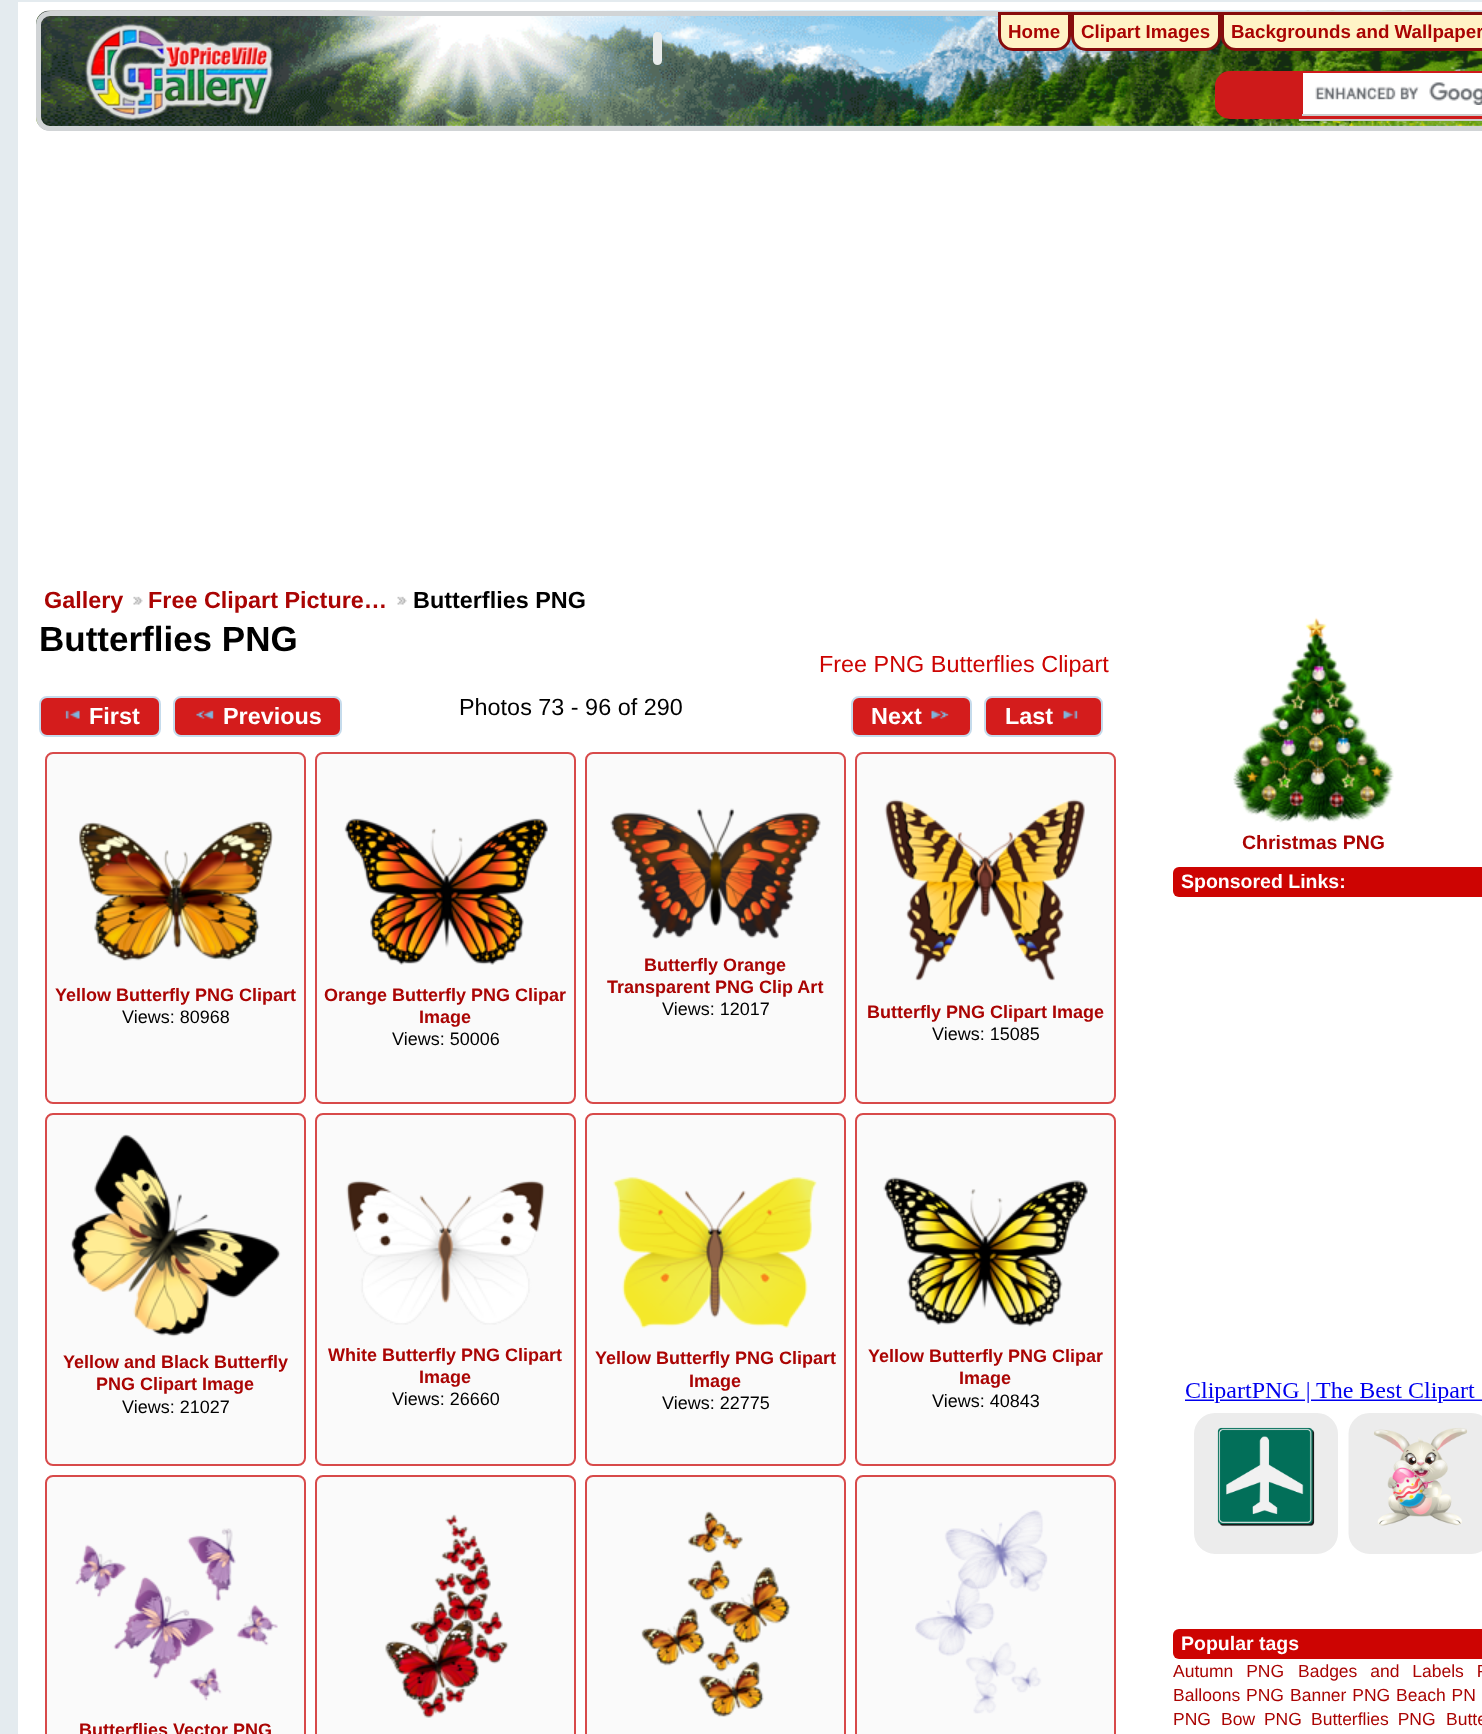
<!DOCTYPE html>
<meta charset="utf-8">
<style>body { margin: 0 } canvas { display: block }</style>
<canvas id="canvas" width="1482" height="1734"></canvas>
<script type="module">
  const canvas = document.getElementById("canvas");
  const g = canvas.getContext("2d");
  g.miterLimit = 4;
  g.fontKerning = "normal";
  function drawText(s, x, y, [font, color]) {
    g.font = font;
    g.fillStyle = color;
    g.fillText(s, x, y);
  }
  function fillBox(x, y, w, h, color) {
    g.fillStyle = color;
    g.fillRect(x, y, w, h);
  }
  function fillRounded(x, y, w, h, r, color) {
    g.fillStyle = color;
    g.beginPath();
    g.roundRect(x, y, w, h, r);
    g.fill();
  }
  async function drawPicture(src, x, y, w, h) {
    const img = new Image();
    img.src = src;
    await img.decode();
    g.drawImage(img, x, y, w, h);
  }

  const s1 = ["bold 18.75px Liberation Sans", "#AA0403"];
  const s2 = ["bold 23.4px Liberation Sans", "#AA0403"];
  const s3 = ["bold 23.4px Liberation Sans", "#000000"];
  const s4 = ["bold 35px Liberation Sans", "#000000"];
  const s5 = ["23.4px Liberation Sans", "#CD0402"];
  const s6 = ["bold 23.4px Liberation Sans", "#FFFFFF"];
  const s7 = ["23.4px Liberation Sans", "#000000"];
  const s8 = ["bold 18px Liberation Sans", "#AA0403"];
  const s9 = ["18px Liberation Sans", "#000000"];
  const s10 = ["bold 19.5px Liberation Sans", "#AA0403"];
  const s11 = ["bold 19.5px Liberation Sans", "#FFFFFF"];
  const s12 = ["17.5px Liberation Sans", "#AA0403"];

  fillBox(0, 0, 1482, 1734, "#FFFFFF");
  await drawPicture("pic1.png", 36, 10, 1446, 121);
  g.beginPath();
  g.roundRect(38.5, 13.5, 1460, 115, 11.5);
  g.strokeStyle = "#D1D4D6";
  g.lineWidth = 5;
  g.stroke();
  fillRounded(653, 32, 9, 33, 4.5, "#E9ECEB");
  g.fillStyle = "#FFF3C6";
  g.beginPath();
  g.roundRect(999.5, 13.5, 70, 36, [0, 0, 13.5, 13.5]);
  g.fill();
  g.strokeStyle = "#860C0C";
  g.lineWidth = 3;
  g.stroke();
  drawText("Home", 1008, 38, s1);
  g.fillStyle = "#FFF3C6";
  g.beginPath();
  g.roundRect(1072.5, 13.5, 147, 36, [0, 0, 13.5, 13.5]);
  g.fill();
  g.stroke();
  drawText("Clipart Images", 1081, 38, s1);
  g.fillStyle = "#FFF3C6";
  g.beginPath();
  g.moveTo(1222.5, 13.5);
  g.lineTo(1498.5, 13.5);
  g.lineTo(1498.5, 36);
  g.bezierCurveTo(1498.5, 43.5, 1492.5, 49.5, 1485, 49.5);
  g.lineTo(1236, 49.5);
  g.bezierCurveTo(1228.5, 49.5, 1222.5, 43.5, 1222.5, 36);
  g.closePath();
  g.fill();
  g.stroke();
  drawText("Backgrounds and Wallpaper", 1231, 38, s1);
  fillBox(18, 0, 1464, 2, "#E4EBEF");
  fillBox(0, 0, 18, 1734, "#E4EBEF");
  await drawPicture("pic2.png", 83, 23, 192, 101);
  fillRounded(1215, 71, 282, 48, 15, "#CE1A1A");
  fillBox(1299, 119, 183, 2, "#CCCCCC");
  fillBox(1303, 73, 179, 41, "#FFFFFF");
  fillBox(1302, 114, 180, 2, "#CCCCCC");
  await drawPicture("pic3.png", 1315, 82, 167, 23);
  drawText("Gallery", 44, 608, s2);
  await drawPicture("pic4.png", 133, 596, 10, 9);
  drawText("Free Clipart Picture…", 148, 608, s2);
  await drawPicture("pic5.png", 397, 596, 10, 9);
  drawText("Butterflies PNG", 413, 608, s3);
  drawText("Butterflies PNG", 39, 651, s4);
  drawText("Free PNG Butterflies Clipart", 819, 672, s5);
  g.fillStyle = "#D41C1C";
  g.beginPath();
  g.roundRect(40, 697, 120, 39, 7);
  g.fill();
  g.strokeStyle = "#C5DBEC";
  g.lineWidth = 2;
  g.stroke();
  await drawPicture("pic6.png", 65, 710, 15, 9);
  drawText("First", 89, 724, s6);
  g.fillStyle = "#D41C1C";
  g.beginPath();
  g.roundRect(174, 697, 167, 39, 7);
  g.fill();
  g.stroke();
  await drawPicture("pic7.png", 196, 710, 18, 9);
  drawText("Previous", 223, 724, s6);
  drawText("Photos 73 - 96 of 290", 459, 715, s7);
  g.fillStyle = "#D41C1C";
  g.beginPath();
  g.roundRect(852, 697, 119, 39, 7);
  g.fill();
  g.stroke();
  drawText("Next", 871, 724, s6);
  await drawPicture("pic8.png", 931, 710, 18, 9);
  g.fillStyle = "#D41C1C";
  g.beginPath();
  g.roundRect(985, 697, 117, 39, 7);
  g.fill();
  g.stroke();
  drawText("Last", 1005, 724, s6);
  await drawPicture("pic9.png", 1063, 710, 15, 9);
  g.fillStyle = "#FAFAFA";
  g.beginPath();
  g.roundRect(46, 753, 259, 350, 7);
  g.fill();
  g.strokeStyle = "#D84A4A";
  g.stroke();
  await drawPicture("pic10.png", 79, 821, 194, 140);
  drawText("Yellow Butterfly PNG Clipart", 55, 1001, s8);
  drawText("Views: 80968", 122, 1023, s9);
  g.fillStyle = "#FAFAFA";
  g.beginPath();
  g.roundRect(316, 753, 259, 350, 7);
  g.fill();
  g.stroke();
  await drawPicture("pic11.png", 344, 818, 204, 147);
  drawText("Orange Butterfly PNG Clipar", 324, 1001, s8);
  drawText("Image", 419, 1023, s8);
  drawText("Views: 50006", 392, 1045, s9);
  g.fillStyle = "#FAFAFA";
  g.beginPath();
  g.roundRect(586, 753, 259, 350, 7);
  g.fill();
  g.stroke();
  await drawPicture("pic12.png", 610, 808, 211, 131);
  drawText("Butterfly Orange", 644, 971, s8);
  drawText("Transparent PNG Clip Art", 607, 993, s8);
  drawText("Views: 12017", 662, 1015, s9);
  g.fillStyle = "#FAFAFA";
  g.beginPath();
  g.roundRect(856, 753, 259, 350, 7);
  g.fill();
  g.stroke();
  await drawPicture("pic13.png", 884, 799, 201, 182);
  drawText("Butterfly PNG Clipart Image", 867, 1018, s8);
  drawText("Views: 15085", 932, 1040, s9);
  g.fillStyle = "#FAFAFA";
  g.beginPath();
  g.roundRect(46, 1114, 259, 351, 7);
  g.fill();
  g.stroke();
  await drawPicture("pic14.png", 70, 1134, 211, 203);
  drawText("Yellow and Black Butterfly", 63, 1368, s8);
  drawText("PNG Clipart Image", 96, 1390, s8);
  drawText("Views: 21027", 122, 1413, s9);
  g.fillStyle = "#FAFAFA";
  g.beginPath();
  g.roundRect(316, 1114, 259, 351, 7);
  g.fill();
  g.stroke();
  await drawPicture("pic15.png", 346, 1180, 199, 145);
  drawText("White Butterfly PNG Clipart", 328, 1361, s8);
  drawText("Image", 419, 1383, s8);
  drawText("Views: 26660", 392, 1405, s9);
  g.fillStyle = "#FAFAFA";
  g.beginPath();
  g.roundRect(586, 1114, 259, 351, 7);
  g.fill();
  g.stroke();
  await drawPicture("pic16.png", 613, 1177, 204, 151);
  drawText("Yellow Butterfly PNG Clipart", 595, 1364, s8);
  drawText("Image", 689, 1387, s8);
  drawText("Views: 22775", 662, 1409, s9);
  g.fillStyle = "#FAFAFA";
  g.beginPath();
  g.roundRect(856, 1114, 259, 351, 7);
  g.fill();
  g.stroke();
  await drawPicture("pic17.png", 883, 1177, 205, 150);
  drawText("Yellow Butterfly PNG Clipar", 868, 1362, s8);
  drawText("Image", 959, 1384, s8);
  drawText("Views: 40843", 932, 1407, s9);
  g.fillStyle = "#FAFAFA";
  g.beginPath();
  g.roundRect(46, 1476, 259, 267, 7);
  g.fill();
  g.stroke();
  await drawPicture("pic18.png", 75, 1528, 203, 173);
  drawText("Butterflies Vector PNG", 79, 1736, s8);
  g.fillStyle = "#FAFAFA";
  g.beginPath();
  g.roundRect(316, 1476, 259, 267, 7);
  g.fill();
  g.stroke();
  await drawPicture("pic19.png", 385, 1514, 124, 204);
  g.beginPath();
  g.roundRect(586, 1476, 259, 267, 7);
  g.fill();
  g.stroke();
  await drawPicture("pic20.png", 641, 1511, 150, 206);
  g.beginPath();
  g.roundRect(856, 1476, 259, 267, 7);
  g.fill();
  g.stroke();
  await drawPicture("pic21.png", 915, 1510, 133, 204);
  await drawPicture("pic22.png", 1233, 617, 161, 206);
  drawText("Christmas PNG", 1242, 849, s10);
  fillRounded(1173, 867, 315, 30, 6, "#CD0402");
  drawText("Sponsored Links:", 1181, 888, s11);
  await drawPicture("pic23.png", 1185, 1382, 297, 172);
  fillRounded(1173, 1629, 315, 30, 6, "#CD0402");
  drawText("Popular tags", 1181, 1650, s11);
  g.wordSpacing = "8px";
  drawText("Autumn PNG", 1173, 1677, s12);
  drawText("Badges and Labels P", 1298, 1677, s12);
  g.wordSpacing = "1px";
  drawText("Balloons PNG", 1173, 1701, s12);
  drawText("Banner PNG", 1290, 1701, s12);
  drawText("Beach PN", 1396, 1701, s12);
  g.wordSpacing = "0px";
  drawText("PNG", 1173, 1725, s12);
  g.wordSpacing = "4px";
  drawText("Bow PNG", 1221, 1725, s12);
  drawText("Butterflies PNG", 1311, 1725, s12);
  g.wordSpacing = "0px";
  drawText("Butte", 1446, 1725, s12);
</script>
